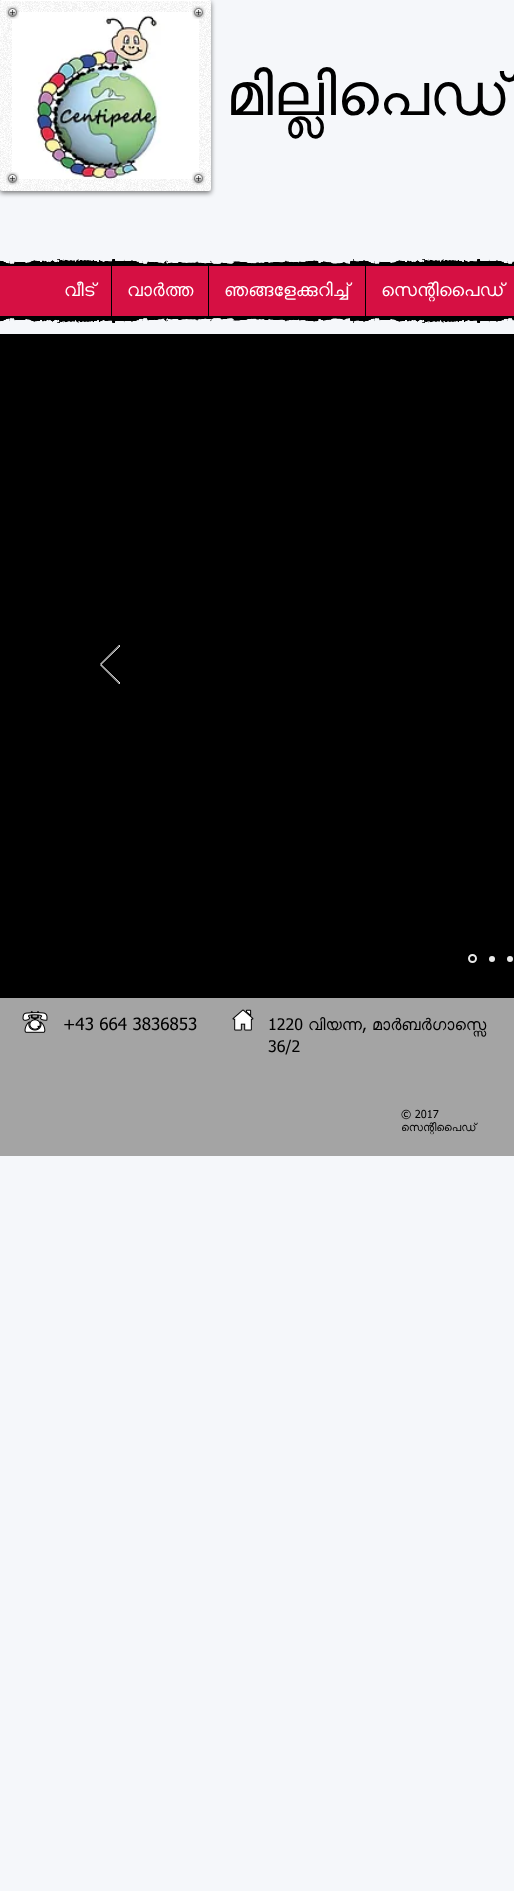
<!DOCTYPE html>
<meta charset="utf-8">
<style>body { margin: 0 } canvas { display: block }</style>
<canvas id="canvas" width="514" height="1891"></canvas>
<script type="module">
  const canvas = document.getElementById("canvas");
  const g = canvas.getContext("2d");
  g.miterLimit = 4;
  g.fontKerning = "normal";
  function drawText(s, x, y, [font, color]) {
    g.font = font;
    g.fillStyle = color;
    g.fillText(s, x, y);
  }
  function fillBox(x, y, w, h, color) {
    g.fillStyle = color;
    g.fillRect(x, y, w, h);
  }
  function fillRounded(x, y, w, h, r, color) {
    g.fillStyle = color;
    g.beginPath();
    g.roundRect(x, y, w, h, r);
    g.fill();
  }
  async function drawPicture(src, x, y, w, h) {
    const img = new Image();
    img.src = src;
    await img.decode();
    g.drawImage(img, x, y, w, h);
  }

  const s1 = ["59px FreeSans", "#000000"];
  const s2 = ["18px FreeSans", "#FFFFFF"];
  const s3 = ["17px tahoma", "#000000"];
  const s4 = ["16px tahoma", "#000000"];
  const s5 = ["16px FreeSans", "#000000"];
  const s6 = ["11px tahoma", "#000000"];
  const s7 = ["11px FreeSans", "#000000"];

  fillBox(0, 0, 514, 1891, "#F5F7FA");
  g.fillStyle = "rgba(0, 0, 0, 0.53)";
  g.filter = "blur(2.5px)";
  g.beginPath();
  g.roundRect(0, 2, 211, 191, 2);
  g.fill();
  g.filter = "none";
  fillRounded(0, 0, 211, 191, 2, "#FFFFFF");
  await drawPicture("pic1.png", 0, 0, 211, 191);
  g.fillStyle = "rgba(255, 255, 255, 0.92)";
  g.beginPath();
  g.moveTo(2, 1);
  g.bezierCurveTo(1, 1, 0, 2, 0, 3);
  g.bezierCurveTo(0, 2, 0, 0, 2, 0);
  g.lineTo(209, 0);
  g.bezierCurveTo(211, 0, 211, 2, 211, 3);
  g.bezierCurveTo(211, 2, 210, 1, 209, 1);
  g.closePath();
  g.fill();
  await drawPicture("pic4.png", 12, 12, 187, 167);
  await drawPicture("pic2.png", 6, 6, 13, 13);
  await drawPicture("pic3.png", 192, 6, 13, 13);
  await drawPicture("pic5.png", 6, 172, 13, 13);
  await drawPicture("pic6.png", 192, 172, 13, 13);
  drawText("മില്ലിപെഡ്", 226, 115, s1);
  await drawPicture("pic7.png", 0, 259, 514, 7);
  fillBox(0, 266, 514, 50, "#D61043");
  drawText("വീട്", 64, 296, s2);
  fillBox(111, 266, 1, 50, "#000000");
  drawText("വാർത്ത", 127, 296, s2);
  fillBox(208, 266, 1, 50, "#000000");
  drawText("ഞങ്ങളേക്കുറിച്ച്", 224, 296, s2);
  fillBox(365, 266, 1, 50, "#000000");
  drawText("സെന്റിപൈഡ്", 381, 296, s2);
  await drawPicture("pic8.png", 0, 316, 514, 7);
  fillBox(0, 334, 514, 664, "#000000");
  g.save();
  g.beginPath();
  g.rect(100, 645, 20, 39);
  g.clip();
  g.beginPath();
  g.moveTo(119.5, 684);
  g.lineTo(100, 664.5);
  g.lineTo(119.5, 645);
  g.lineTo(120, 646);
  g.lineTo(101, 664.5);
  g.lineTo(120, 683);
  g.closePath();
  g.strokeStyle = "#EAEAEA";
  g.stroke();
  g.restore();
  g.beginPath();
  g.arc(472.5, 958.5, 3.5, 0, Math.PI * 2);
  g.strokeStyle = "#EAEAEA";
  g.lineWidth = 2;
  g.stroke();
  g.fillStyle = "#EAEAEA";
  g.beginPath();
  g.arc(492, 959, 3, 0, Math.PI * 2);
  g.fill();
  g.beginPath();
  g.arc(510, 959, 3, 0, Math.PI * 2);
  g.fill();
  fillBox(0, 998, 514, 158, "#A4A4A4");
  await drawPicture("pic9.png", 22, 1011, 26, 22);
  drawText("+43 664 3836853", 63, 1030, s3);
  await drawPicture("pic10.png", 232, 1009, 22, 22);
  drawText("1220", 268, 1030, s4);
  drawText("വിയന്ന", 308, 1030, s5);
  drawText(",", 362, 1030, s4);
  drawText("മാർബർഗാസ്സെ", 372, 1030, s5);
  drawText("36/2", 268, 1052, s4);
  drawText("© 2017", 401, 1118, s6);
  drawText("സെന്റിപൈഡ്", 401, 1131, s7);
</script>
